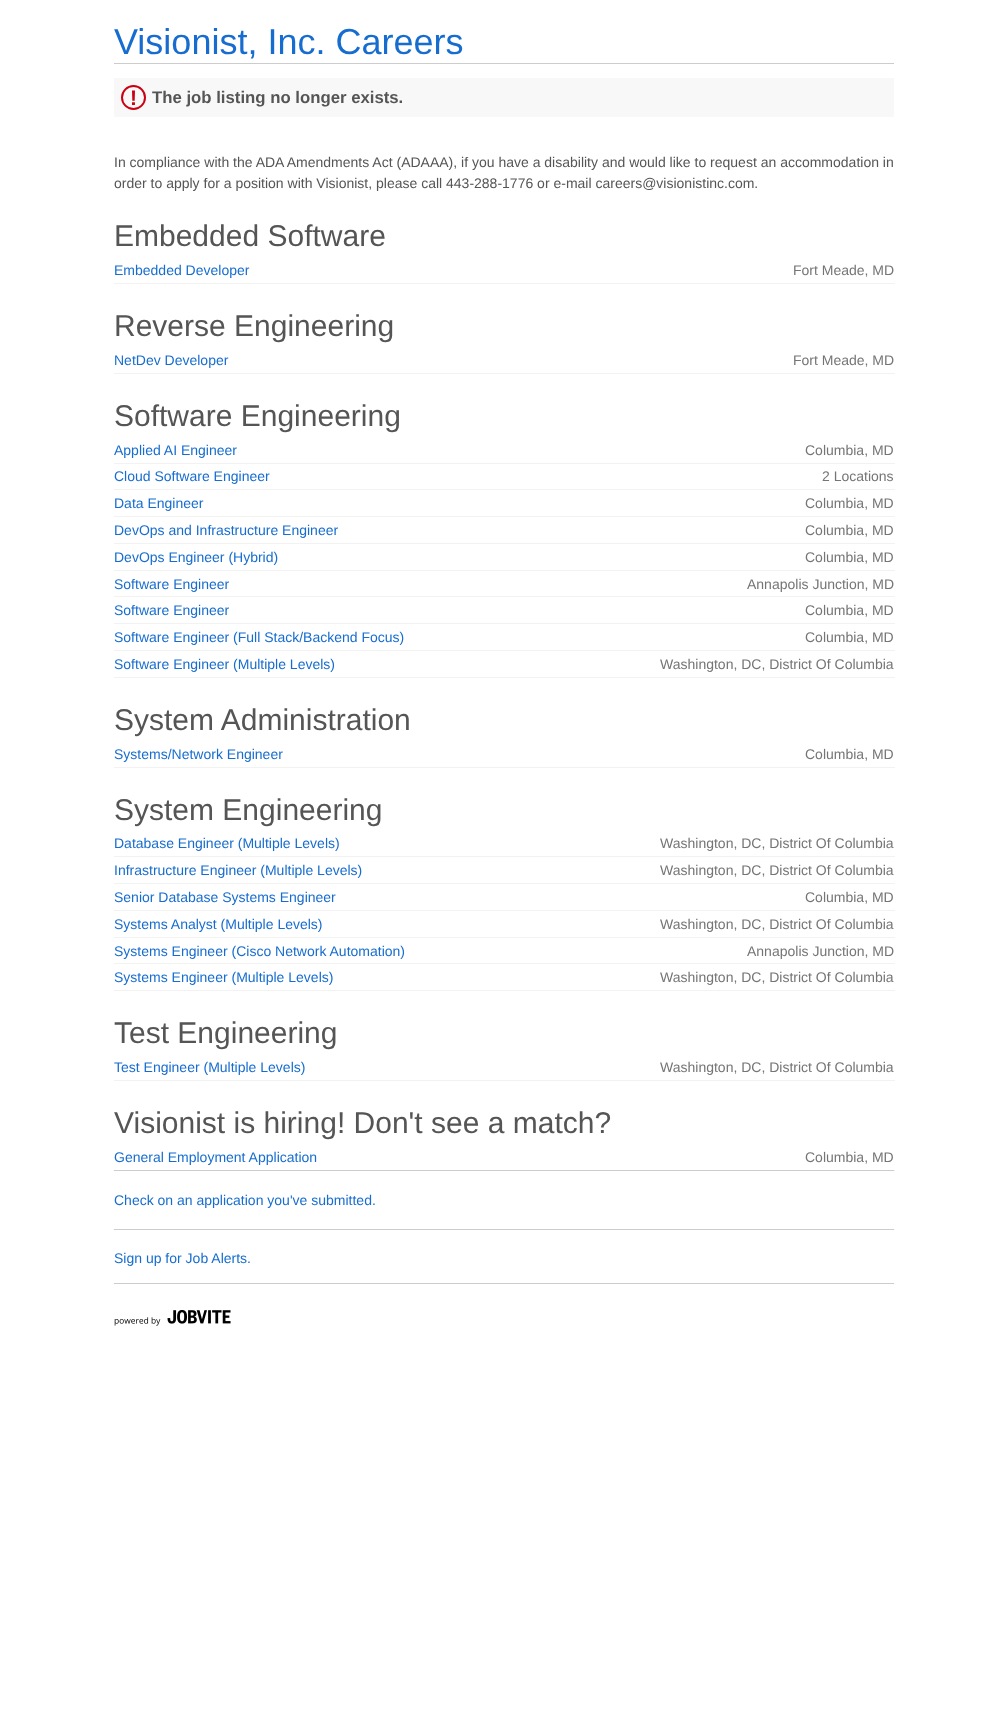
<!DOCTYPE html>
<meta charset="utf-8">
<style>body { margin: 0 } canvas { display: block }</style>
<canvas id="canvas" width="1008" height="1712"></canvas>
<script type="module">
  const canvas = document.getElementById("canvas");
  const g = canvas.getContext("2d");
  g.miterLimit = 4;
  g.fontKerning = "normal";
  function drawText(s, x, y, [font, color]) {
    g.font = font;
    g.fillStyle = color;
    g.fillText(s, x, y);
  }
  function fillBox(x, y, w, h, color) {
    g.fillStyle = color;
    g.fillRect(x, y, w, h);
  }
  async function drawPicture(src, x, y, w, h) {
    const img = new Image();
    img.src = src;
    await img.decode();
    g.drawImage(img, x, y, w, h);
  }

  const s1 = ["36px Liberation Sans", "#176DCF"];
  const s2 = ["bold 21px Liberation Sans", "#CB0013"];
  const s3 = ["bold 16.75px Liberation Sans", "#555555"];
  const s4 = ["14px Liberation Sans", "#555555"];
  const s5 = ["30px Liberation Sans", "#555555"];
  const s6 = ["14px Liberation Sans", "#176DCF"];
  const s7 = ["14px Liberation Sans", "#757575"];

  fillBox(0, 0, 1008, 1712, "#FFFFFF");
  fillBox(114, 63, 780, 1, "#CCCCCC");
  drawText("Visionist, Inc. Careers", 114, 54, s1);
  fillBox(114, 78, 780, 39, "#F8F8F8");
  g.beginPath();
  g.arc(133.5, 97.5, 11.5, 0, Math.PI * 2);
  g.strokeStyle = "#CB0013";
  g.lineWidth = 2;
  g.stroke();
  drawText("!", 130, 105, s2);
  drawText("The job listing no longer exists.", 152, 103, s3);
  drawText("In compliance with the ADA Amendments Act (ADAAA), if you have a disability and would like to request an accommodation in", 114, 167, s4);
  drawText("order to apply for a position with Visionist, please call 443-288-1776 or e-mail careers@visionistinc.com.", 114, 188, s4);
  drawText("Embedded Software", 114, 246, s5);
  drawText("Embedded Developer", 114, 275, s6);
  fillBox(114, 283, 781, 1, "#F2F2F2");
  drawText("Fort Meade, MD", 793, 275, s7);
  drawText("Reverse Engineering", 114, 336, s5);
  drawText("NetDev Developer", 114, 365, s6);
  fillBox(114, 373, 781, 1, "#F2F2F2");
  drawText("Fort Meade, MD", 793, 365, s7);
  drawText("Software Engineering", 114, 426, s5);
  drawText("Applied AI Engineer", 114, 455, s6);
  fillBox(114, 463, 781, 1, "#F2F2F2");
  drawText("Columbia, MD", 805, 455, s7);
  drawText("Cloud Software Engineer", 114, 481, s6);
  fillBox(114, 489, 781, 1, "#F2F2F2");
  drawText("2 Locations", 822, 481, s7);
  drawText("Data Engineer", 114, 508, s6);
  fillBox(114, 516, 781, 1, "#F2F2F2");
  drawText("Columbia, MD", 805, 508, s7);
  drawText("DevOps and Infrastructure Engineer", 114, 535, s6);
  fillBox(114, 543, 781, 1, "#F2F2F2");
  drawText("Columbia, MD", 805, 535, s7);
  drawText("DevOps Engineer (Hybrid)", 114, 562, s6);
  fillBox(114, 570, 781, 1, "#F2F2F2");
  drawText("Columbia, MD", 805, 562, s7);
  drawText("Software Engineer", 114, 589, s6);
  fillBox(114, 596, 781, 1, "#F2F2F2");
  drawText("Annapolis Junction, MD", 747, 589, s7);
  drawText("Software Engineer", 114, 615, s6);
  fillBox(114, 623, 781, 1, "#F2F2F2");
  drawText("Columbia, MD", 805, 615, s7);
  drawText("Software Engineer (Full Stack/Backend Focus)", 114, 642, s6);
  fillBox(114, 650, 781, 1, "#F2F2F2");
  drawText("Columbia, MD", 805, 642, s7);
  drawText("Software Engineer (Multiple Levels)", 114, 669, s6);
  fillBox(114, 677, 781, 1, "#F2F2F2");
  drawText("Washington, DC, District Of Columbia", 660, 669, s7);
  drawText("System Administration", 114, 730, s5);
  drawText("Systems/Network Engineer", 114, 759, s6);
  fillBox(114, 767, 781, 1, "#F2F2F2");
  drawText("Columbia, MD", 805, 759, s7);
  drawText("System Engineering", 114, 820, s5);
  drawText("Database Engineer (Multiple Levels)", 114, 848, s6);
  fillBox(114, 856, 781, 1, "#F2F2F2");
  drawText("Washington, DC, District Of Columbia", 660, 848, s7);
  drawText("Infrastructure Engineer (Multiple Levels)", 114, 875, s6);
  fillBox(114, 883, 781, 1, "#F2F2F2");
  drawText("Washington, DC, District Of Columbia", 660, 875, s7);
  drawText("Senior Database Systems Engineer", 114, 902, s6);
  fillBox(114, 910, 781, 1, "#F2F2F2");
  drawText("Columbia, MD", 805, 902, s7);
  drawText("Systems Analyst (Multiple Levels)", 114, 929, s6);
  fillBox(114, 937, 781, 1, "#F2F2F2");
  drawText("Washington, DC, District Of Columbia", 660, 929, s7);
  drawText("Systems Engineer (Cisco Network Automation)", 114, 956, s6);
  fillBox(114, 963, 781, 1, "#F2F2F2");
  drawText("Annapolis Junction, MD", 747, 956, s7);
  drawText("Systems Engineer (Multiple Levels)", 114, 982, s6);
  fillBox(114, 990, 781, 1, "#F2F2F2");
  drawText("Washington, DC, District Of Columbia", 660, 982, s7);
  drawText("Test Engineering", 114, 1043, s5);
  drawText("Test Engineer (Multiple Levels)", 114, 1072, s6);
  fillBox(114, 1080, 781, 1, "#F2F2F2");
  drawText("Washington, DC, District Of Columbia", 660, 1072, s7);
  drawText("Visionist is hiring! Don't see a match?", 114, 1133, s5);
  drawText("General Employment Application", 114, 1162, s6);
  fillBox(894, 1170, 1, 1, "#F2F2F2");
  drawText("Columbia, MD", 805, 1162, s7);
  fillBox(114, 1170, 780, 1, "#CCCCCC");
  drawText("Check on an application you've submitted.", 114, 1205, s6);
  fillBox(114, 1229, 780, 1, "#CCCCCC");
  drawText("Sign up for Job Alerts.", 114, 1263, s6);
  fillBox(114, 1283, 780, 1, "#CCCCCC");
  await drawPicture("pic1.png", 114, 1310, 117, 16);
</script>
